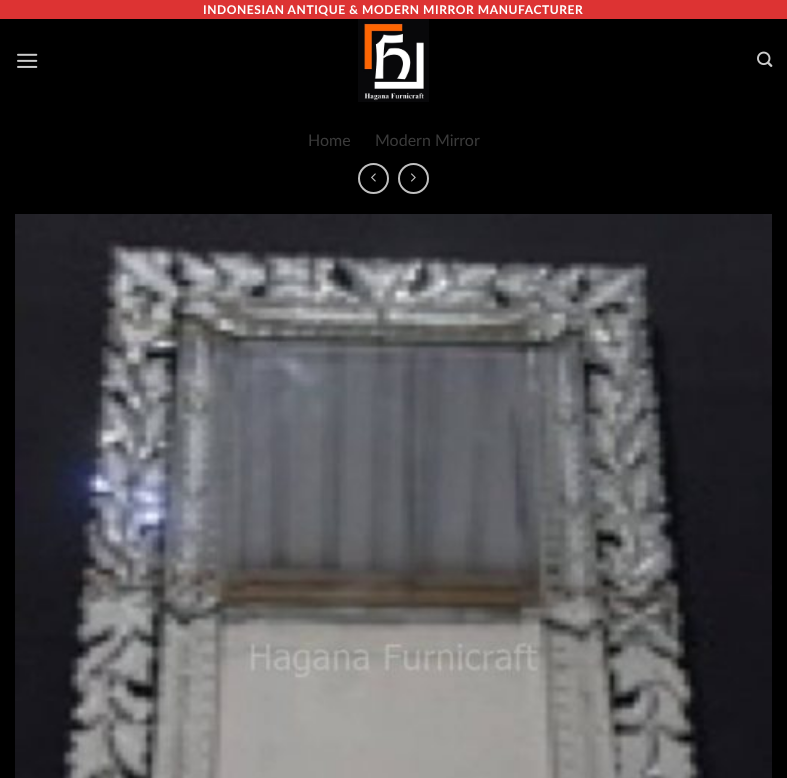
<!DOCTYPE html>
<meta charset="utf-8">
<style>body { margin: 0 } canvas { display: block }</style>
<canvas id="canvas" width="787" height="778"></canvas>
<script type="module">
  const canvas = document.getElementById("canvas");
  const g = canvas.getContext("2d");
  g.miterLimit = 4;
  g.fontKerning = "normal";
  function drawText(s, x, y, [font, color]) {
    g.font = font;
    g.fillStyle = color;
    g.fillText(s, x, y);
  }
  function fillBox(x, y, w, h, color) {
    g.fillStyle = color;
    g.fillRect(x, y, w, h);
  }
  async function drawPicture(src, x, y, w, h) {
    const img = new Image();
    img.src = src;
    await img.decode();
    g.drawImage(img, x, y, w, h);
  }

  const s1 = ["bold 12px Lato", "#FFFFFF"];
  const s2 = ["16px Lato", "#3B3B3B"];

  fillBox(0, 0, 787, 778, "#000000");
  fillBox(0, 0, 787, 19, "#DD3333");
  g.letterSpacing = "0.6px";
  drawText("INDONESIAN ANTIQUE & MODERN MIRROR MANUFACTURER", 203, 14, s1);
  await drawPicture("pic1.png", 17, 53, 21, 15);
  await drawPicture("pic2.png", 358, 19, 71, 83);
  await drawPicture("pic3.png", 757, 51, 16, 16);
  g.letterSpacing = "0px";
  drawText("Home", 308, 146, s2);
  drawText("Modern Mirror", 375, 146, s2);
  g.beginPath();
  g.arc(373.5, 178.5, 14.5, 0, Math.PI * 2);
  g.strokeStyle = "#C0C0C0";
  g.lineWidth = 2;
  g.stroke();
  await drawPicture("pic4.png", 371, 173, 5, 9);
  g.beginPath();
  g.arc(413.5, 178.5, 14.5, 0, Math.PI * 2);
  g.stroke();
  await drawPicture("pic5.png", 411, 173, 5, 9);
  await drawPicture("pic6.png", 15, 214, 757, 564);
</script>
